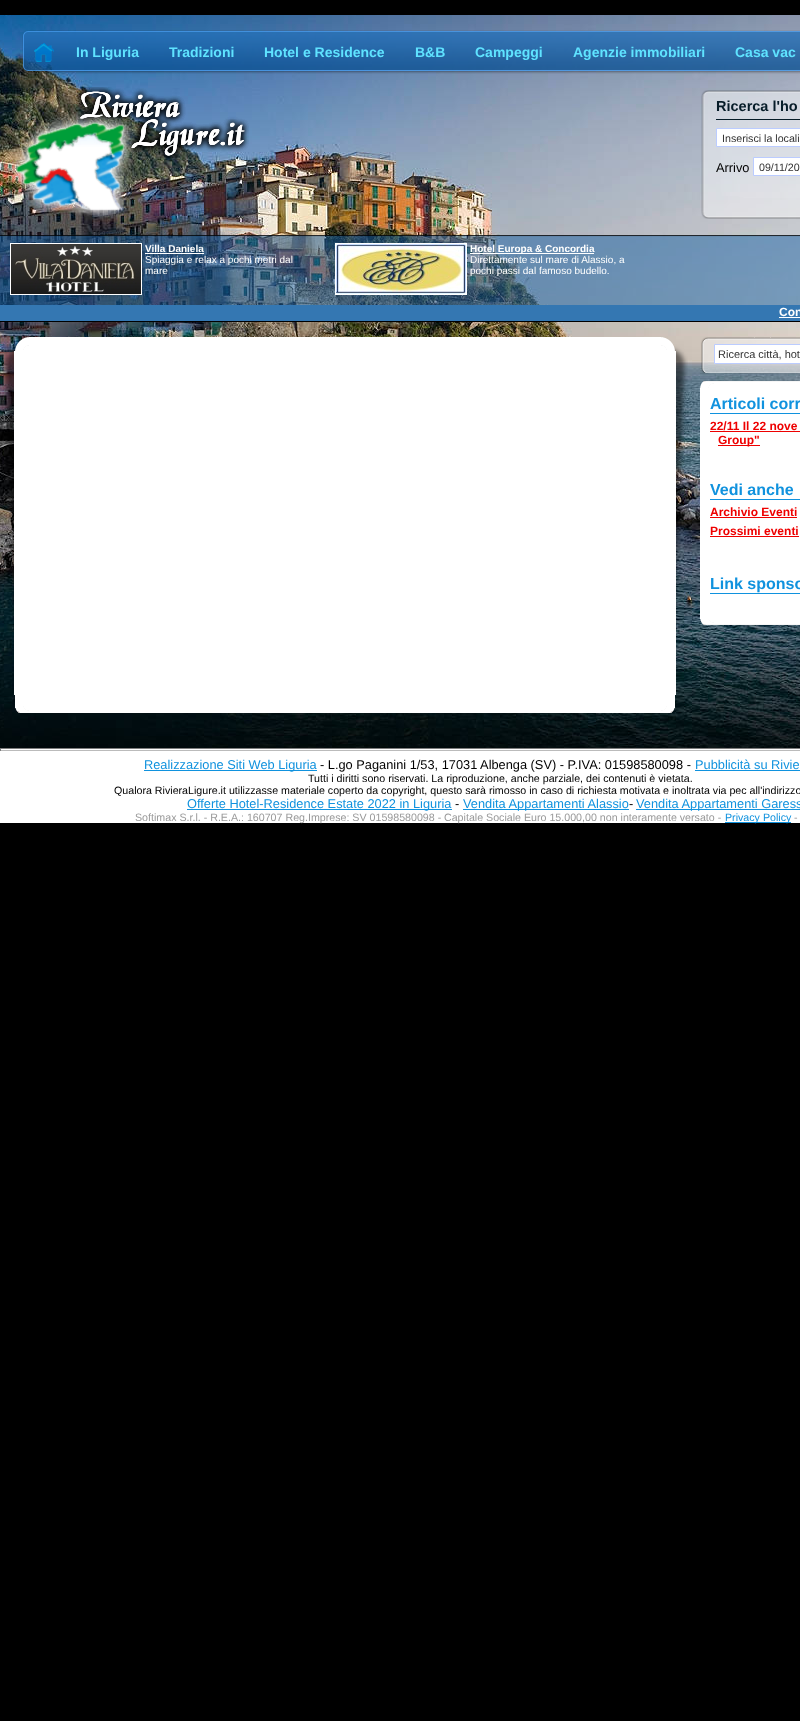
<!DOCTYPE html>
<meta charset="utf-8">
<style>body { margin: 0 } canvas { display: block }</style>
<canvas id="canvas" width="800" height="1721"></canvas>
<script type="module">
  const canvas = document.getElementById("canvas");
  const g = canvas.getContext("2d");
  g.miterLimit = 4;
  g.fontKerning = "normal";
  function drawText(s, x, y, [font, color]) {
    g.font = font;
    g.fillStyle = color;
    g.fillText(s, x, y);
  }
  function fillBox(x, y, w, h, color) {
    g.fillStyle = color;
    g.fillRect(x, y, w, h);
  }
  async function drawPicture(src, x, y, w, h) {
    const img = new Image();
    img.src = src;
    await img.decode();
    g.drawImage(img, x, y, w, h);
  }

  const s1 = ["bold 14px Liberation Sans", "#5FE3FF"];
  const s2 = ["bold 14.5px Liberation Sans", "#061C28"];
  const s3 = ["10.67px Liberation Sans", "#333333"];
  const s4 = ["12.8px Liberation Sans", "#000000"];
  const s5 = ["bold 10px Liberation Sans", "#FFFFFF"];
  const s6 = ["10px Liberation Sans", "#FFFFFF"];
  const s7 = ["bold 12px Liberation Sans", "#FFFFFF"];
  const s8 = ["11px Liberation Sans", "#333333"];
  const s9 = ["bold 16px Liberation Sans", "#1092DE"];
  const s10 = ["bold 12px Liberation Sans", "#EE0000"];
  const s11 = ["12.8px Liberation Sans", "#1092DE"];
  const s12 = ["10.67px Liberation Sans", "#000000"];
  const s13 = ["10.67px Liberation Sans", "#999999"];
  const s14 = ["10.67px Liberation Sans", "#1092DE"];

  fillBox(0, 0, 800, 1721, "#000000");
  await drawPicture("pic1.png", 0, 15, 800, 733);
  await drawPicture("pic2.png", 22, 30, 778, 44);
  await drawPicture("pic3.png", 34, 43, 20, 19);
  drawText("In Liguria", 76, 57, s1);
  drawText("Tradizioni", 169, 57, s1);
  drawText("Hotel e Residence", 264, 57, s1);
  drawText("B&B", 415, 57, s1);
  drawText("Campeggi", 475, 57, s1);
  drawText("Agenzie immobiliari", 573, 57, s1);
  drawText("Casa vac", 735, 57, s1);
  await drawPicture("pic4.png", 10, 87, 239, 134);
  await drawPicture("pic5.png", 10, 87, 239, 134);
  await drawPicture("pic6.png", 701, 90, 99, 129);
  fillBox(716, 119, 84, 1, "#061C28");
  drawText("Ricerca l'ho", 716, 111, s2);
  g.fillStyle = "#FFFFFF";
  g.beginPath();
  g.rect(716.5, 128.5, 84, 18);
  g.fill();
  g.strokeStyle = "#BBCCFF";
  g.stroke();
  drawText("Inserisci la locali", 722, 142, s3);
  drawText("Arrivo", 716, 172, s4);
  g.fillStyle = "#FFFFFF";
  g.beginPath();
  g.rect(753.5, 157.5, 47, 18);
  g.fill();
  g.stroke();
  drawText("09/11/20", 759, 171, s3);
  await drawPicture("pic7.png", 0, 235, 800, 70);
  g.strokeStyle = "#FFFFFF";
  g.strokeRect(10.5, 243.5, 131, 51);
  await drawPicture("pic8.png", 11, 244, 130, 50);
  drawText("Villa Daniela", 145, 252, s5);
  fillBox(145, 253, 59, 1, "#FFFFFF");
  drawText("Spiaggia e relax a pochi metri dal", 145, 263, s6);
  drawText("mare", 145, 274, s6);
  g.strokeRect(335.5, 243.5, 131, 51);
  await drawPicture("pic9.png", 336, 244, 130, 50);
  fillBox(470, 253, 124, 1, "#FFFFFF");
  drawText("Hotel Europa & Concordia", 470, 252, s5);
  drawText("Direttamente sul mare di Alassio, a", 470, 263, s6);
  drawText("pochi passi dal famoso budello.", 470, 274, s6);
  fillBox(0, 305, 800, 16, "#3477B2");
  fillBox(0, 321, 800, 1, "#000000");
  drawText("Con", 779, 316, s7);
  fillBox(779, 317, 21, 1, "#FFFFFF");
  await drawPicture("pic10.png", 2, 337, 686, 371);
  fillBox(14, 351, 662, 344, "#FFFFFF");
  await drawPicture("pic11.png", 15, 706, 660, 7);
  await drawPicture("pic12.png", 701, 337, 99, 36);
  g.beginPath();
  g.rect(714.5, 344.5, 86, 19);
  g.fill();
  g.strokeStyle = "#BBCCFF";
  g.stroke();
  drawText("Ricerca città, hot", 718, 358, s8);
  await drawPicture("pic13.png", 700, 381, 100, 7);
  fillBox(700, 388, 100, 231, "#FFFFFF");
  fillBox(710, 413, 90, 1, "#1092DE");
  drawText("Articoli corr", 710, 409, s9);
  drawText("22/11 Il 22 nove", 710, 430, s10);
  fillBox(710, 431, 90, 1, "#EE0000");
  fillBox(718, 445, 42, 1, "#EE0000");
  drawText("Group\"", 718, 444, s10);
  fillBox(710, 499, 90, 1, "#1092DE");
  drawText("Vedi anche", 710, 495, s9);
  drawText("Archivio Eventi", 710, 516, s10);
  fillBox(710, 517, 87, 1, "#EE0000");
  drawText("Prossimi eventi", 710, 535, s10);
  fillBox(710, 536, 89, 1, "#EE0000");
  fillBox(710, 593, 90, 1, "#1092DE");
  drawText("Link sponso", 710, 589, s9);
  await drawPicture("pic14.png", 700, 619, 100, 6);
  fillBox(0, 749, 800, 74, "#FFFFFF");
  fillBox(0, 748, 800, 1, "#7D7D7D");
  fillBox(0, 750, 800, 1, "#BBBBBB");
  fillBox(0, 748, 1, 3, "#7D7D7D");
  fillBox(144, 770, 173, 1, "#1092DE");
  drawText("Realizzazione Siti Web Liguria", 144, 769, s11);
  drawText("- L.go Paganini 1/53, 17031 Albenga (SV) - P.IVA: 01598580098 -", 320, 769, s4);
  drawText("Pubblicità su Rivie", 695, 769, s11);
  fillBox(695, 770, 105, 1, "#1092DE");
  drawText("Tutti i diritti sono riservati. La riproduzione, anche parziale, dei contenuti è vietata.", 308, 782, s12);
  drawText("Qualora RivieraLigure.it utilizzasse materiale coperto da copyright, questo sarà rimosso in caso di richiesta motivata e inoltrata via pec all'indirizzo", 114, 794, s12);
  fillBox(187, 809, 265, 1, "#1092DE");
  drawText("Offerte Hotel-Residence Estate 2022 in Liguria", 187, 808, s11);
  drawText("-", 455, 808, s4);
  fillBox(463, 809, 166, 1, "#1092DE");
  drawText("Vendita Appartamenti Alassio", 463, 808, s11);
  drawText("-", 629, 808, s4);
  fillBox(636, 809, 164, 1, "#1092DE");
  drawText("Vendita Appartamenti Garess", 636, 808, s11);
  drawText("Softimax S.r.l. - R.E.A.: 160707 Reg.Imprese: SV 01598580098 -", 135, 821, s13);
  drawText("Capitale Sociale Euro 15.000,00 non interamente versato -", 444, 821, s13);
  fillBox(725, 822, 66, 1, "#1092DE");
  drawText("Privacy Policy", 725, 821, s14);
  drawText("-", 794, 821, s13);
</script>
